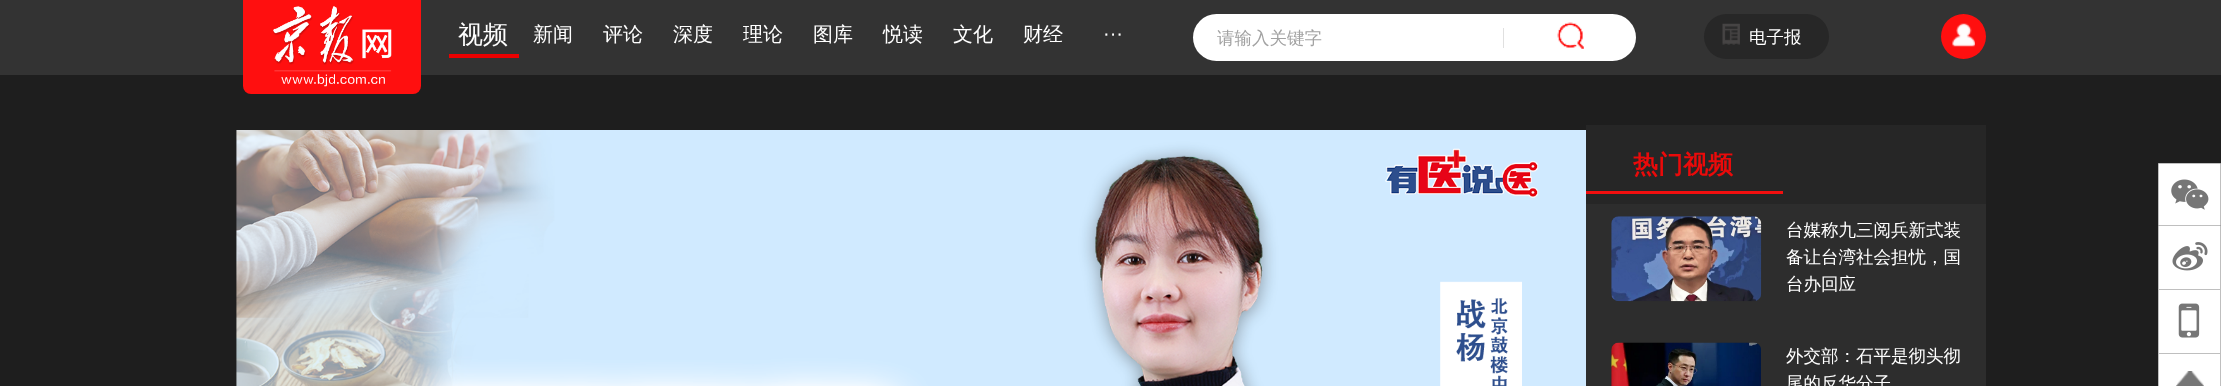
<!DOCTYPE html>
<meta charset="utf-8">
<style>body { margin: 0 } canvas { display: block }</style>
<canvas id="canvas" width="2221" height="386"></canvas>
<script type="module">
  const canvas = document.getElementById("canvas");
  const g = canvas.getContext("2d");
  g.miterLimit = 4;
  g.fontKerning = "normal";
  function drawText(s, x, y, [font, color]) {
    g.font = font;
    g.fillStyle = color;
    g.fillText(s, x, y);
  }
  function fillBox(x, y, w, h, color) {
    g.fillStyle = color;
    g.fillRect(x, y, w, h);
  }
  function fillRounded(x, y, w, h, r, color) {
    g.fillStyle = color;
    g.beginPath();
    g.roundRect(x, y, w, h, r);
    g.fill();
  }
  async function drawPicture(src, x, y, w, h) {
    const img = new Image();
    img.src = src;
    await img.decode();
    g.drawImage(img, x, y, w, h);
  }

  const s1 = ["500 25px WenQuanYi Zen Hei", "#FFFFFF"];
  const s2 = ["500 20px WenQuanYi Zen Hei", "#FFFFFF"];
  const s3 = ["20px Liberation Sans", "#FFFFFF"];
  const s4 = ["500 17.5px WenQuanYi Zen Hei", "#A2A2A2"];
  const s5 = ["500 17.5px WenQuanYi Zen Hei", "#FFFFFF"];
  const s6 = ["bold 25px WenQuanYi Zen Hei", "#EA0A0A"];

  fillBox(0, 0, 2221, 386, "#333333");
  fillBox(0, 75, 2221, 311, "#1E1E1E");
  g.fillStyle = "#FF0F0F";
  g.beginPath();
  g.roundRect(243, 0, 178, 94, [0, 0, 8, 8]);
  g.fill();
  await drawPicture("pic1.png", 273, 6, 119, 81);
  fillBox(449, 54, 70, 4, "#EB0000");
  drawText("视频", 458, 43, s1);
  drawText("新闻", 533, 41, s2);
  drawText("评论", 603, 41, s2);
  drawText("深度", 673, 41, s2);
  drawText("理论", 743, 41, s2);
  drawText("图库", 813, 41, s2);
  drawText("悦读", 883, 41, s2);
  drawText("文化", 953, 41, s2);
  drawText("财经", 1023, 41, s2);
  drawText("···", 1103, 40, s3);
  g.beginPath();
  g.roundRect(1193, 14, 310, 47, [23.5, 0, 0, 23.5]);
  g.fill();
  drawText("请输入关键字", 1217, 44, s4);
  g.fillStyle = "#FFFFFF";
  g.beginPath();
  g.roundRect(1503, 14, 133, 47, [0, 23.5, 23.5, 0]);
  g.fill();
  fillBox(1503, 28, 1, 20, "#E0E0E0");
  await drawPicture("pic2.png", 1557, 22, 27, 27);
  fillRounded(1704, 14, 125, 45, 22.5, "#272727");
  await drawPicture("pic3.png", 1722, 23, 18, 22);
  drawText("电子报", 1749, 43, s5);
  g.fillStyle = "#FF0F0F";
  g.beginPath();
  g.arc(1963.5, 36.5, 22.5, 0, Math.PI * 2);
  g.fill();
  await drawPicture("pic4.png", 1952, 23, 23, 24);
  await drawPicture("pic5.png", 236, 130, 1350, 256);
  fillBox(1586, 125, 400, 79, "#262626");
  fillBox(1586, 191, 197, 3, "#F20F0F");
  drawText("热门视频", 1633, 173, s6);
  fillBox(1586, 204, 400, 182, "#2D2D2D");
  await drawPicture("pic6.png", 1611, 216, 151, 86);
  drawText("台媒称九三阅兵新式装", 1786, 236, s5);
  drawText("备让台湾社会担忧，国", 1786, 263, s5);
  drawText("台办回应", 1786, 290, s5);
  await drawPicture("pic7.png", 1611, 342, 150, 44);
  drawText("外交部：石平是彻头彻", 1786, 362, s5);
  drawText("尾的反华分子", 1786, 389, s5);
  g.beginPath();
  g.rect(2158.5, 163.5, 62, 62);
  g.fill();
  g.strokeStyle = "#BFBFBF";
  g.stroke();
  await drawPicture("pic8.png", 2171, 179, 38, 31);
  fillBox(2159, 226, 61, 63, "#FFFFFF");
  fillBox(2220, 226, 1, 160, "#BFBFBF");
  fillBox(2158, 289, 63, 1, "#BFBFBF");
  fillBox(2158, 226, 1, 64, "#BFBFBF");
  await drawPicture("pic9.png", 2172, 242, 36, 29);
  fillBox(2159, 290, 61, 63, "#FFFFFF");
  fillBox(2158, 353, 63, 1, "#BFBFBF");
  fillBox(2158, 290, 1, 96, "#BFBFBF");
  await drawPicture("pic10.png", 2178, 303, 22, 35);
  fillBox(2159, 354, 61, 32, "#FFFFFF");
  await drawPicture("pic11.png", 2176, 371, 28, 15);
</script>
